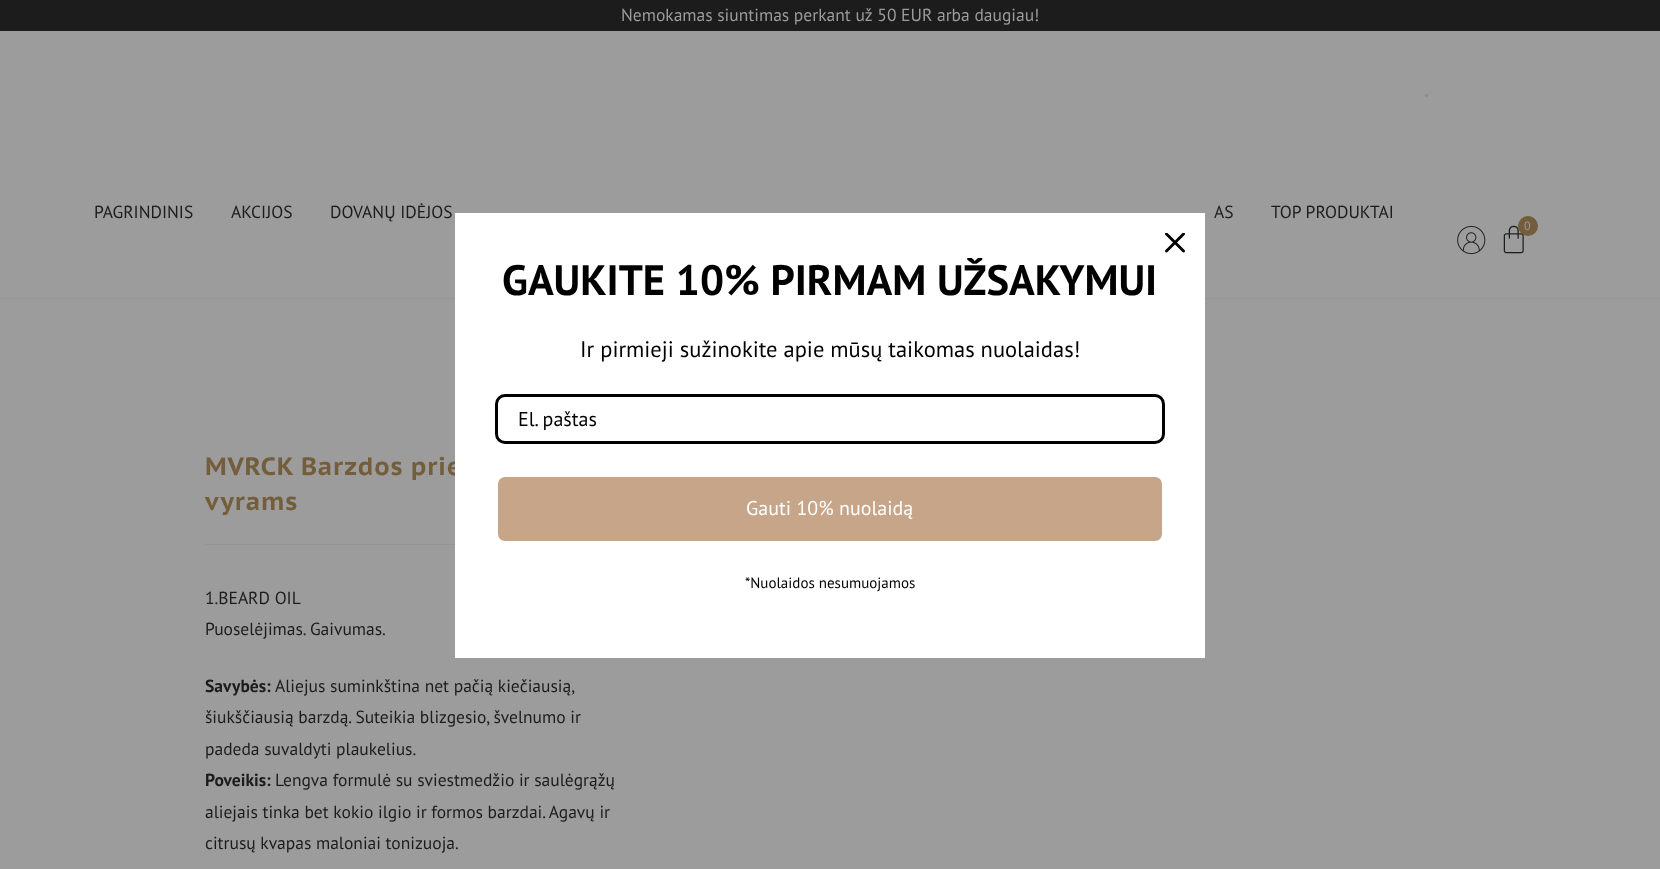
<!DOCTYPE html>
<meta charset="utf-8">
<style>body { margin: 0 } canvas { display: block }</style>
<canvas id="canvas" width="1660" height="869"></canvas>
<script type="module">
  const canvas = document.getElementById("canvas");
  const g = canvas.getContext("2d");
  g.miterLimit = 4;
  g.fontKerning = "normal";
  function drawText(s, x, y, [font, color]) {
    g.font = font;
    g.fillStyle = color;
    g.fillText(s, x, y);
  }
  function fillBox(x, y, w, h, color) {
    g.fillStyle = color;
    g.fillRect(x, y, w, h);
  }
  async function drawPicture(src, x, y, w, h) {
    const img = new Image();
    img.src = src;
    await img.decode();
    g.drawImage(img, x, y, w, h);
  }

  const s1 = ["17.5px PT Sans", "#9C9C9C"];
  const s2 = ["17.5px PT Sans", "#1C1C1C"];
  const s3 = ["12px PT Sans", "#9C9C9C"];
  const s4 = ["bold 25px PT Sans Caption", "#735D3B"];
  const s5 = ["bold 17.5px PT Sans", "#1C1C1C"];
  const s6 = ["bold 42.5px 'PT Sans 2'", "#000000"];
  const s7 = ["22.5px 'PT Sans 2'", "#000000"];
  const s8 = ["20px 'PT Sans 2'", "#000000"];
  const s9 = ["20px 'PT Sans 2'", "#FFFFFF"];
  const s10 = ["15px 'PT Sans 2'", "#000000"];

  fillBox(0, 0, 1660, 869, "#9C9C9C");
  fillBox(0, 298, 1660, 1, "#959595");
  fillBox(0, 0, 1660, 31, "#1C1C1C");
  drawText("Nemokamas siuntimas perkant už 50 EUR arba daugiau!", 621, 21, s1);
  g.beginPath();
  g.moveTo(1426, 95.5);
  g.lineTo(1427, 95.5);
  g.strokeStyle = "#8B8B8B";
  g.lineWidth = 2.4;
  g.lineCap = "round";
  g.stroke();
  drawText("PAGRINDINIS", 94, 218, s2);
  drawText("AKCIJOS", 231, 218, s2);
  drawText("DOVANŲ IDĖJOS", 330, 218, s2);
  drawText("AS", 1214, 218, s2);
  drawText("TOP PRODUKTAI", 1271, 218, s2);
  await drawPicture("pic1.png", 1457, 225, 29, 30);
  await drawPicture("pic2.png", 1503, 225, 21, 29);
  g.fillStyle = "#735D3B";
  g.beginPath();
  g.arc(1528, 226, 10, 0, Math.PI * 2);
  g.fill();
  drawText("0", 1524, 230, s3);
  fillBox(205, 544, 250, 1, "#959595");
  g.letterSpacing = "0.75px";
  drawText("MVRCK Barzdos prie", 205, 475, s4);
  drawText("vyrams", 205, 510, s4);
  g.letterSpacing = "0px";
  drawText("1.BEARD OIL", 205, 604, s2);
  drawText("Puoselėjimas. Gaivumas.", 205, 635, s2);
  drawText("Savybės:", 205, 692, s5);
  drawText("Aliejus suminkština net pačią kiečiausią,", 275, 692, s2);
  drawText("šiukščiausią barzdą. Suteikia blizgesio, švelnumo ir", 205, 723, s2);
  drawText("padeda suvaldyti plaukelius.", 205, 755, s2);
  drawText("Poveikis:", 205, 786, s5);
  drawText("Lengva formulė su sviestmedžio ir saulėgrąžų", 275, 786, s2);
  drawText("aliejais tinka bet kokio ilgio ir formos barzdai. Agavų ir", 205, 818, s2);
  drawText("citrusų kvapas maloniai tonizuoja.", 205, 849, s2);
  fillBox(455, 213, 750, 445, "#FFFFFF");
  await drawPicture("pic3.png", 1165, 233, 20, 20);
  drawText("GAUKITE 10% PIRMAM UŽSAKYMUI", 502, 295, s6);
  drawText("Ir pirmieji sužinokite apie mūsų taikomas nuolaidas!", 580, 357, s7);
  g.beginPath();
  g.roundRect(496.5, 395.5, 667, 47, 8.5);
  g.strokeStyle = "#000000";
  g.lineWidth = 3;
  g.stroke();
  drawText("El. paštas", 518, 426, s8);
  g.fillStyle = "#C7A589";
  g.beginPath();
  g.roundRect(496.5, 475.5, 667, 67, 8.5);
  g.fill();
  g.strokeStyle = "#FFFFFF";
  g.stroke();
  drawText("Gauti 10% nuolaidą", 746, 515, s9);
  drawText("*Nuolaidos nesumuojamos", 745, 588, s10);
</script>
